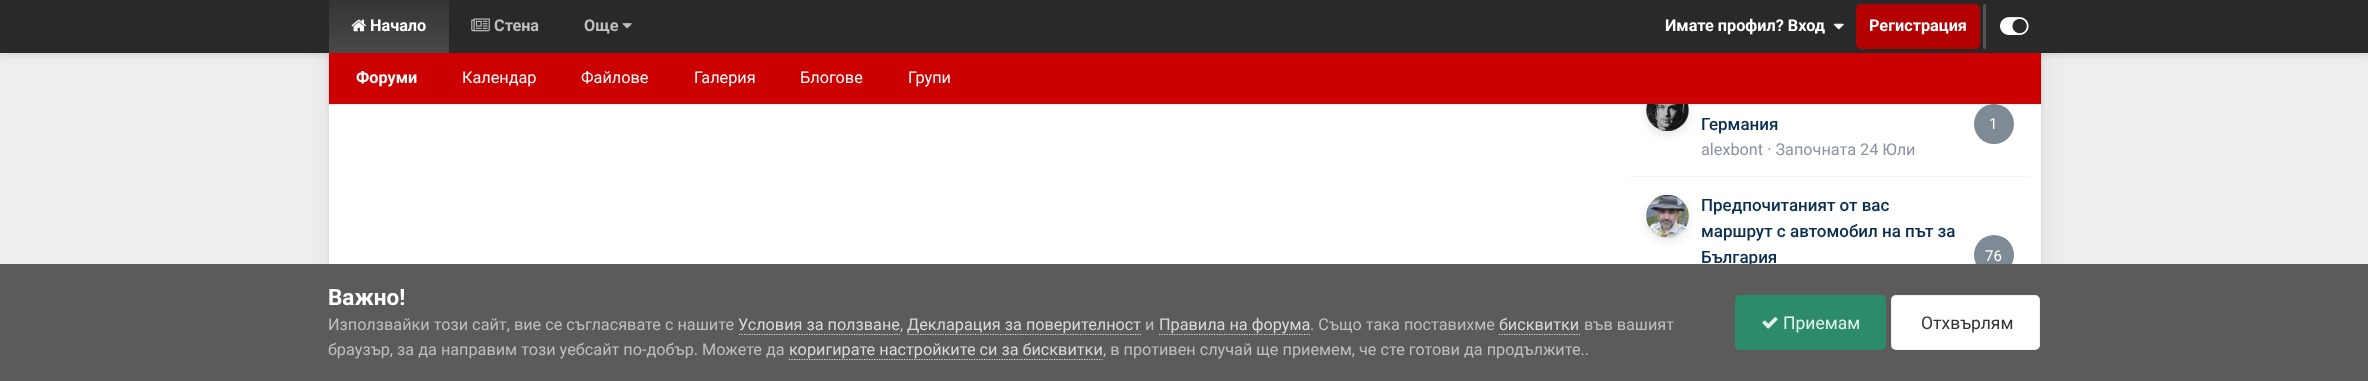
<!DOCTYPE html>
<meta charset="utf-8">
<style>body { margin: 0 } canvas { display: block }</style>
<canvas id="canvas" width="2368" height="381"></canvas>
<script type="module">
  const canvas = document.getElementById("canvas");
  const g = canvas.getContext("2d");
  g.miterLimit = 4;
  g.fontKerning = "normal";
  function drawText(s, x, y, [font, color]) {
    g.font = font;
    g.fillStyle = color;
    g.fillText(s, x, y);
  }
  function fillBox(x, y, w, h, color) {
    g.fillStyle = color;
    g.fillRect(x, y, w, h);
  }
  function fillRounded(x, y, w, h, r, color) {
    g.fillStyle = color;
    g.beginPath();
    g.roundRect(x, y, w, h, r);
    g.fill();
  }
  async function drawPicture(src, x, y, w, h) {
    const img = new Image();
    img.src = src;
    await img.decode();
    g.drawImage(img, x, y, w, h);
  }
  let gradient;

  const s1 = ["bold 16.25px Roboto", "#FFFFFF"];
  const s2 = ["16.25px Roboto", "#FFFFFF"];
  const s3 = ["bold 16.25px Roboto", "#BFBFBF"];
  const s4 = ["500 17px Roboto", "#0A2E50"];
  const s5 = ["15px Roboto", "#FFFFFF"];
  const s6 = ["16.25px Roboto", "#8A93A4"];
  const s7 = ["bold 22.5px Roboto", "#FFFFFF"];
  const s8 = ["16.25px Roboto", "#BFBFBF"];
  const s9 = ["16.25px Roboto", "#DADADA"];
  const s10 = ["17.5px Roboto", "#E3F3EC"];
  const s11 = ["17.5px Roboto", "#333333"];

  fillBox(0, 0, 2368, 381, "#EEEEEE");
  g.fillStyle = "rgba(0, 0, 0, 0.15)";
  g.filter = "blur(4.5px)";
  g.beginPath();
  g.rect(0, 1, 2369, 53);
  g.fill();
  g.filter = "none";
  g.fillStyle = "rgba(0, 0, 0, 0.08)";
  g.filter = "blur(2px)";
  g.beginPath();
  g.roundRect(329, -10, 1712, 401, 4);
  g.fill();
  g.filter = "none";
  g.fillStyle = "rgba(0, 0, 0, 0.06)";
  g.filter = "blur(12.5px)";
  g.beginPath();
  g.roundRect(329, -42, 1712, 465, 4);
  g.fill();
  g.filter = "none";
  fillBox(0, 0, 2368, 53, "#292929");
  gradient = g.createLinearGradient(389, 0, 389, 53);
  gradient.addColorStop(0, "#343434");
  gradient.addColorStop(1, "#494949");
  g.fillStyle = gradient;
  g.fillRect(329, 0, 120, 53);
  await drawPicture("pic1.png", 351, 19, 16, 13);
  drawText("Начало", 370, 31, s1);
  fillBox(329, 104, 1712, 160, "#FFFFFF");
  await drawPicture("pic6.png", 1646, 104, 43, 27);
  g.save();
  g.beginPath();
  g.moveTo(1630, 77);
  g.lineTo(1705, 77);
  g.lineTo(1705, 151);
  g.lineTo(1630, 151);
  g.closePath();
  g.moveTo(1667, 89);
  g.lineTo(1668, 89);
  g.bezierCurveTo(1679.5, 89, 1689, 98.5, 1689, 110);
  g.bezierCurveTo(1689, 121.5, 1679.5, 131, 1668, 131);
  g.lineTo(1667, 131);
  g.bezierCurveTo(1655.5, 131, 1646, 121.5, 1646, 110);
  g.bezierCurveTo(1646, 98.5, 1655.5, 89, 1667, 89);
  g.closePath();
  g.clip("evenodd");
  g.fillStyle = "rgba(0, 0, 0, 0.1)";
  g.filter = "blur(5px)";
  g.beginPath();
  g.roundRect(1646, 93, 43, 42, 21);
  g.fill();
  g.filter = "none";
  g.restore();
  g.beginPath();
  g.roundRect(1646.5, 89.5, 42, 41, 20.5);
  g.strokeStyle = "rgba(81, 89, 99, 0.3)";
  g.stroke();
  g.fillStyle = "#7F8A97";
  g.beginPath();
  g.arc(1994, 124, 20, 0, Math.PI * 2);
  g.fill();
  g.fillStyle = "rgba(0, 0, 0, 0.1)";
  g.filter = "blur(1px)";
  g.beginPath();
  g.rect(329, 54, 1712, 51);
  g.fill();
  g.filter = "none";
  fillBox(329, 53, 1712, 50, "#CC0000");
  drawText("Форуми", 356, 83, s1);
  drawText("Календар", 462, 83, s2);
  drawText("Файлове", 581, 83, s2);
  drawText("Галерия", 694, 83, s2);
  drawText("Блогове", 800, 83, s2);
  drawText("Групи", 908, 83, s2);
  await drawPicture("pic2.png", 471, 18, 19, 14);
  drawText("Стена", 494, 31, s3);
  drawText("Още", 584, 31, s3);
  await drawPicture("pic3.png", 622, 23, 10, 6);
  drawText("Имате профил? Вход", 1665, 31, s1);
  await drawPicture("pic4.png", 1833, 23, 11, 7);
  fillRounded(1856, 4, 124, 45, 5, "#B30000");
  drawText("Регистрация", 1869, 31, s1);
  fillRounded(1983, 4, 3, 45, 1.5, "#545454");
  await drawPicture("pic5.png", 2000, 17, 29, 18);
  fillBox(329, 103, 1712, 1, "#B31214");
  fillBox(1629, 176, 400, 1, "#F3F4F6");
  drawText("Германия", 1701, 130, s4);
  drawText("1", 1989, 129, s5);
  drawText("alexbont · Започната 24 Юли", 1701, 155, s6);
  await drawPicture("pic7.png", 1646, 194, 43, 43);
  g.save();
  g.beginPath();
  g.moveTo(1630, 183);
  g.lineTo(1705, 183);
  g.lineTo(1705, 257);
  g.lineTo(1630, 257);
  g.closePath();
  g.moveTo(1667.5, 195);
  g.bezierCurveTo(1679.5, 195, 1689, 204.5, 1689, 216.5);
  g.bezierCurveTo(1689, 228.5, 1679.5, 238, 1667.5, 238);
  g.bezierCurveTo(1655.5, 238, 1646, 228.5, 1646, 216.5);
  g.bezierCurveTo(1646, 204.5, 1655.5, 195, 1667.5, 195);
  g.closePath();
  g.clip("evenodd");
  g.fillStyle = "rgba(0, 0, 0, 0.1)";
  g.filter = "blur(5px)";
  g.beginPath();
  g.roundRect(1646, 199, 43, 42, 21);
  g.fill();
  g.filter = "none";
  g.restore();
  g.beginPath();
  g.arc(1667.5, 216.5, 21, 0, Math.PI * 2);
  g.stroke();
  drawText("Предпочитаният от вас", 1701, 211, s4);
  drawText("маршрут с автомобил на път за", 1701, 237, s4);
  drawText("България", 1701, 263, s4);
  g.fillStyle = "#7F8A97";
  g.beginPath();
  g.arc(1994, 255, 20, 0, Math.PI * 2);
  g.fill();
  drawText("76", 1985, 261, s5);
  fillBox(0, 264, 2368, 117, "#5B5B5B");
  drawText("Важно!", 328, 305, s7);
  drawText("Използвайки този сайт, вие се съгласявате с нашите", 328, 330, s8);
  drawText("Условия за ползване", 738, 330, s9);
  g.beginPath();
  g.moveTo(739, 334.5);
  g.lineTo(900, 334.5);
  g.strokeStyle = "#DADADA";
  g.lineWidth = 1.2;
  g.setLineDash([1.25, 1.25]);
  g.stroke();
  drawText(",", 900, 330, s8);
  g.beginPath();
  g.moveTo(907.5, 334.5);
  g.lineTo(1141, 334.5);
  g.stroke();
  drawText("Декларация за поверителност", 907, 330, s9);
  drawText("и", 1145, 330, s8);
  g.beginPath();
  g.moveTo(1159, 334.5);
  g.lineTo(1310, 334.5);
  g.stroke();
  drawText("Правила на форума", 1159, 330, s9);
  drawText(". Също така поставихме", 1310, 330, s8);
  drawText("бисквитки", 1499, 330, s9);
  g.beginPath();
  g.moveTo(1499, 334.5);
  g.lineTo(1580, 334.5);
  g.stroke();
  drawText("във вашият", 1584, 330, s8);
  drawText("браузър, за да направим този уебсайт по-добър. Можете да", 328, 355, s8);
  g.beginPath();
  g.moveTo(789, 359.5);
  g.lineTo(1102.5, 359.5);
  g.stroke();
  drawText("коригирате настройките си за бисквитки", 789, 355, s9);
  drawText(", в противен случай ще приемем, че сте готови да продължите..", 1103, 355, s8);
  fillRounded(1735, 295, 151, 55, 5, "#2C8C69");
  await drawPicture("pic8.png", 1762, 317, 16, 12);
  drawText("Приемам", 1783, 329, s10);
  fillRounded(1891, 295, 149, 55, 5, "#FFFFFF");
  g.beginPath();
  g.roundRect(1891.5, 295.5, 148, 54, 4.5);
  g.strokeStyle = "rgba(51, 51, 51, 0.07)";
  g.lineWidth = 1;
  g.setLineDash([]);
  g.stroke();
  drawText("Отхвърлям", 1921, 329, s11);
</script>
